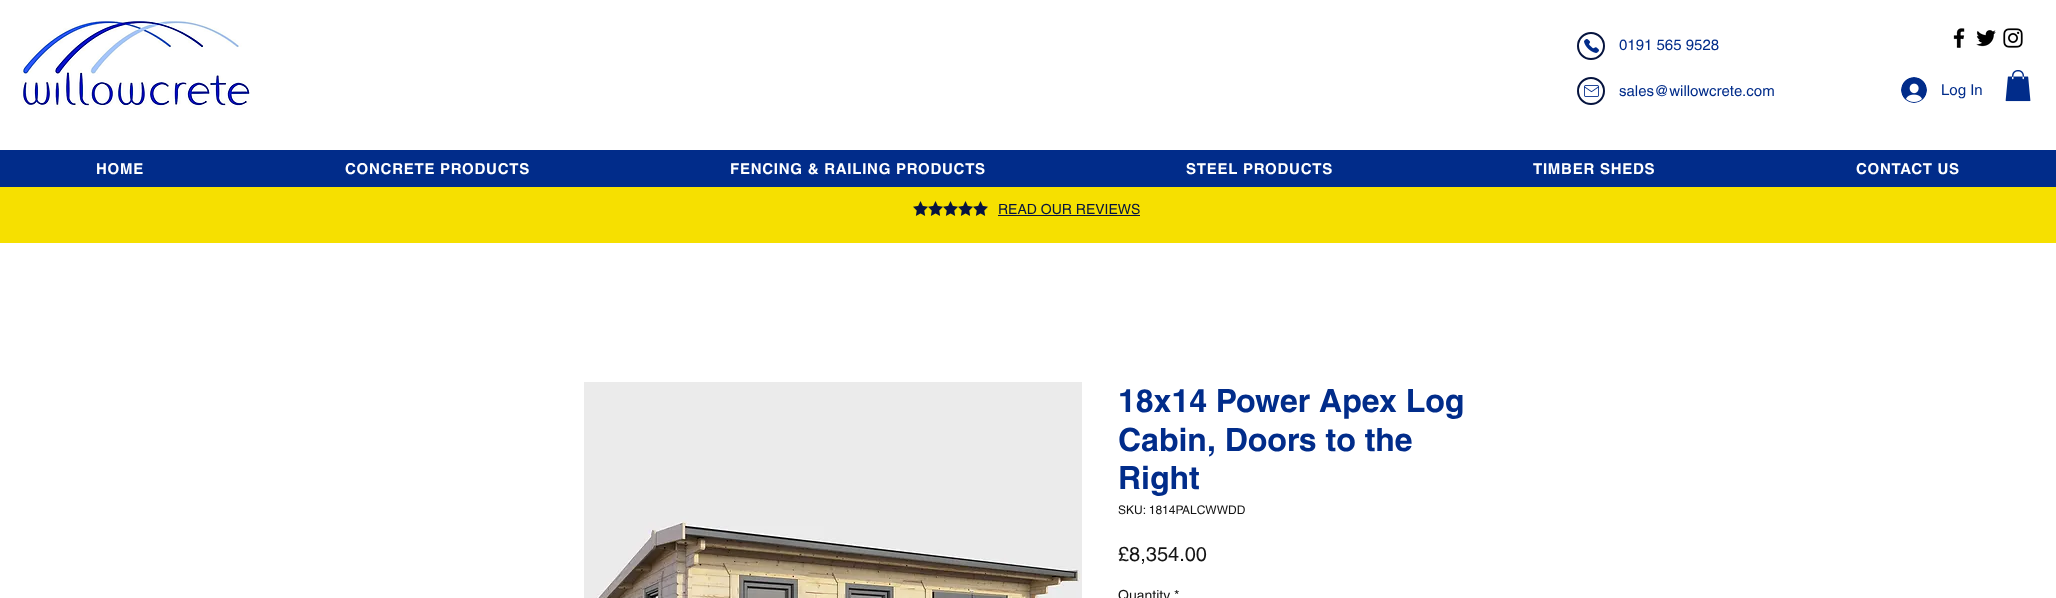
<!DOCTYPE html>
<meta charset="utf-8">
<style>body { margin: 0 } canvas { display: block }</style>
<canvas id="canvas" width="2056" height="598"></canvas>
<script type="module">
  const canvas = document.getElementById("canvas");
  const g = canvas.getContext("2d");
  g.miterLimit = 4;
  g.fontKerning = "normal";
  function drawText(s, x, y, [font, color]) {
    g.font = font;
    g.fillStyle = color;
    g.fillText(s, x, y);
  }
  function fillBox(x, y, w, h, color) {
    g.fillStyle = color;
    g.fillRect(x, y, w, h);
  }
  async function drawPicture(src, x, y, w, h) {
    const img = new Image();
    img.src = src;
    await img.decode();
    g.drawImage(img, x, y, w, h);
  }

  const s1 = ["15px helvetica", "#012C8A"];
  const s2 = ["bold 15px helvetica", "#FFFFFF"];
  const s3 = ["14px helvetica", "#06143F"];
  const s4 = ["bold 32px helvetica", "#012C8A"];
  const s5 = ["12px helvetica", "#151515"];
  const s6 = ["20px helvetica", "#151515"];
  const s7 = ["14px helvetica", "#151515"];

  fillBox(0, 0, 2056, 598, "#FFFFFF");
  await drawPicture("pic1.png", 21, 20, 229, 88);
  g.beginPath();
  g.arc(1591, 46, 13, 0, Math.PI * 2);
  g.strokeStyle = "#06143F";
  g.lineWidth = 2;
  g.stroke();
  await drawPicture("pic2.png", 1584, 39, 15, 14);
  drawText("0191 565 9528", 1619, 50, s1);
  await drawPicture("pic3.png", 1953, 28, 12, 20);
  await drawPicture("pic4.png", 1976, 30, 20, 17);
  await drawPicture("pic5.png", 2003, 28, 20, 20);
  g.beginPath();
  g.arc(1591, 91, 13, 0, Math.PI * 2);
  g.stroke();
  await drawPicture("pic6.png", 1584, 85, 15, 12);
  drawText("sales@willowcrete.com", 1619, 96, s1);
  await drawPicture("pic7.png", 1901, 77, 26, 26);
  drawText("Log In", 1941, 95, s1);
  await drawPicture("pic8.png", 2005, 70, 26, 32);
  fillBox(0, 150, 2056, 37, "#012C8A");
  g.letterSpacing = "0.75px";
  drawText("HOME", 96, 174, s2);
  drawText("CONCRETE PRODUCTS", 345, 174, s2);
  drawText("FENCING & RAILING PRODUCTS", 730, 174, s2);
  drawText("STEEL PRODUCTS", 1186, 174, s2);
  drawText("TIMBER SHEDS", 1533, 174, s2);
  drawText("CONTACT US", 1856, 174, s2);
  fillBox(0, 187, 2056, 56, "#F6E000");
  await drawPicture("pic9.png", 913, 201, 15, 15);
  await drawPicture("pic9.png", 928, 201, 15, 15);
  await drawPicture("pic9.png", 943, 201, 15, 15);
  await drawPicture("pic9.png", 958, 201, 15, 15);
  await drawPicture("pic9.png", 973, 201, 15, 15);
  g.letterSpacing = "0px";
  drawText("READ OUR REVIEWS", 998, 214, s3);
  fillBox(998, 215, 142, 1, "#06143F");
  await drawPicture("pic10.png", 584, 382, 498, 216);
  drawText("18x14 Power Apex Log", 1118, 412, s4);
  drawText("Cabin, Doors to the", 1118, 451, s4);
  drawText("Right", 1118, 489, s4);
  drawText("SKU: 1814PALCWWDD", 1118, 514, s5);
  drawText("£8,354.00", 1118, 561, s6);
  drawText("Quantity *", 1118, 600, s7);
</script>
